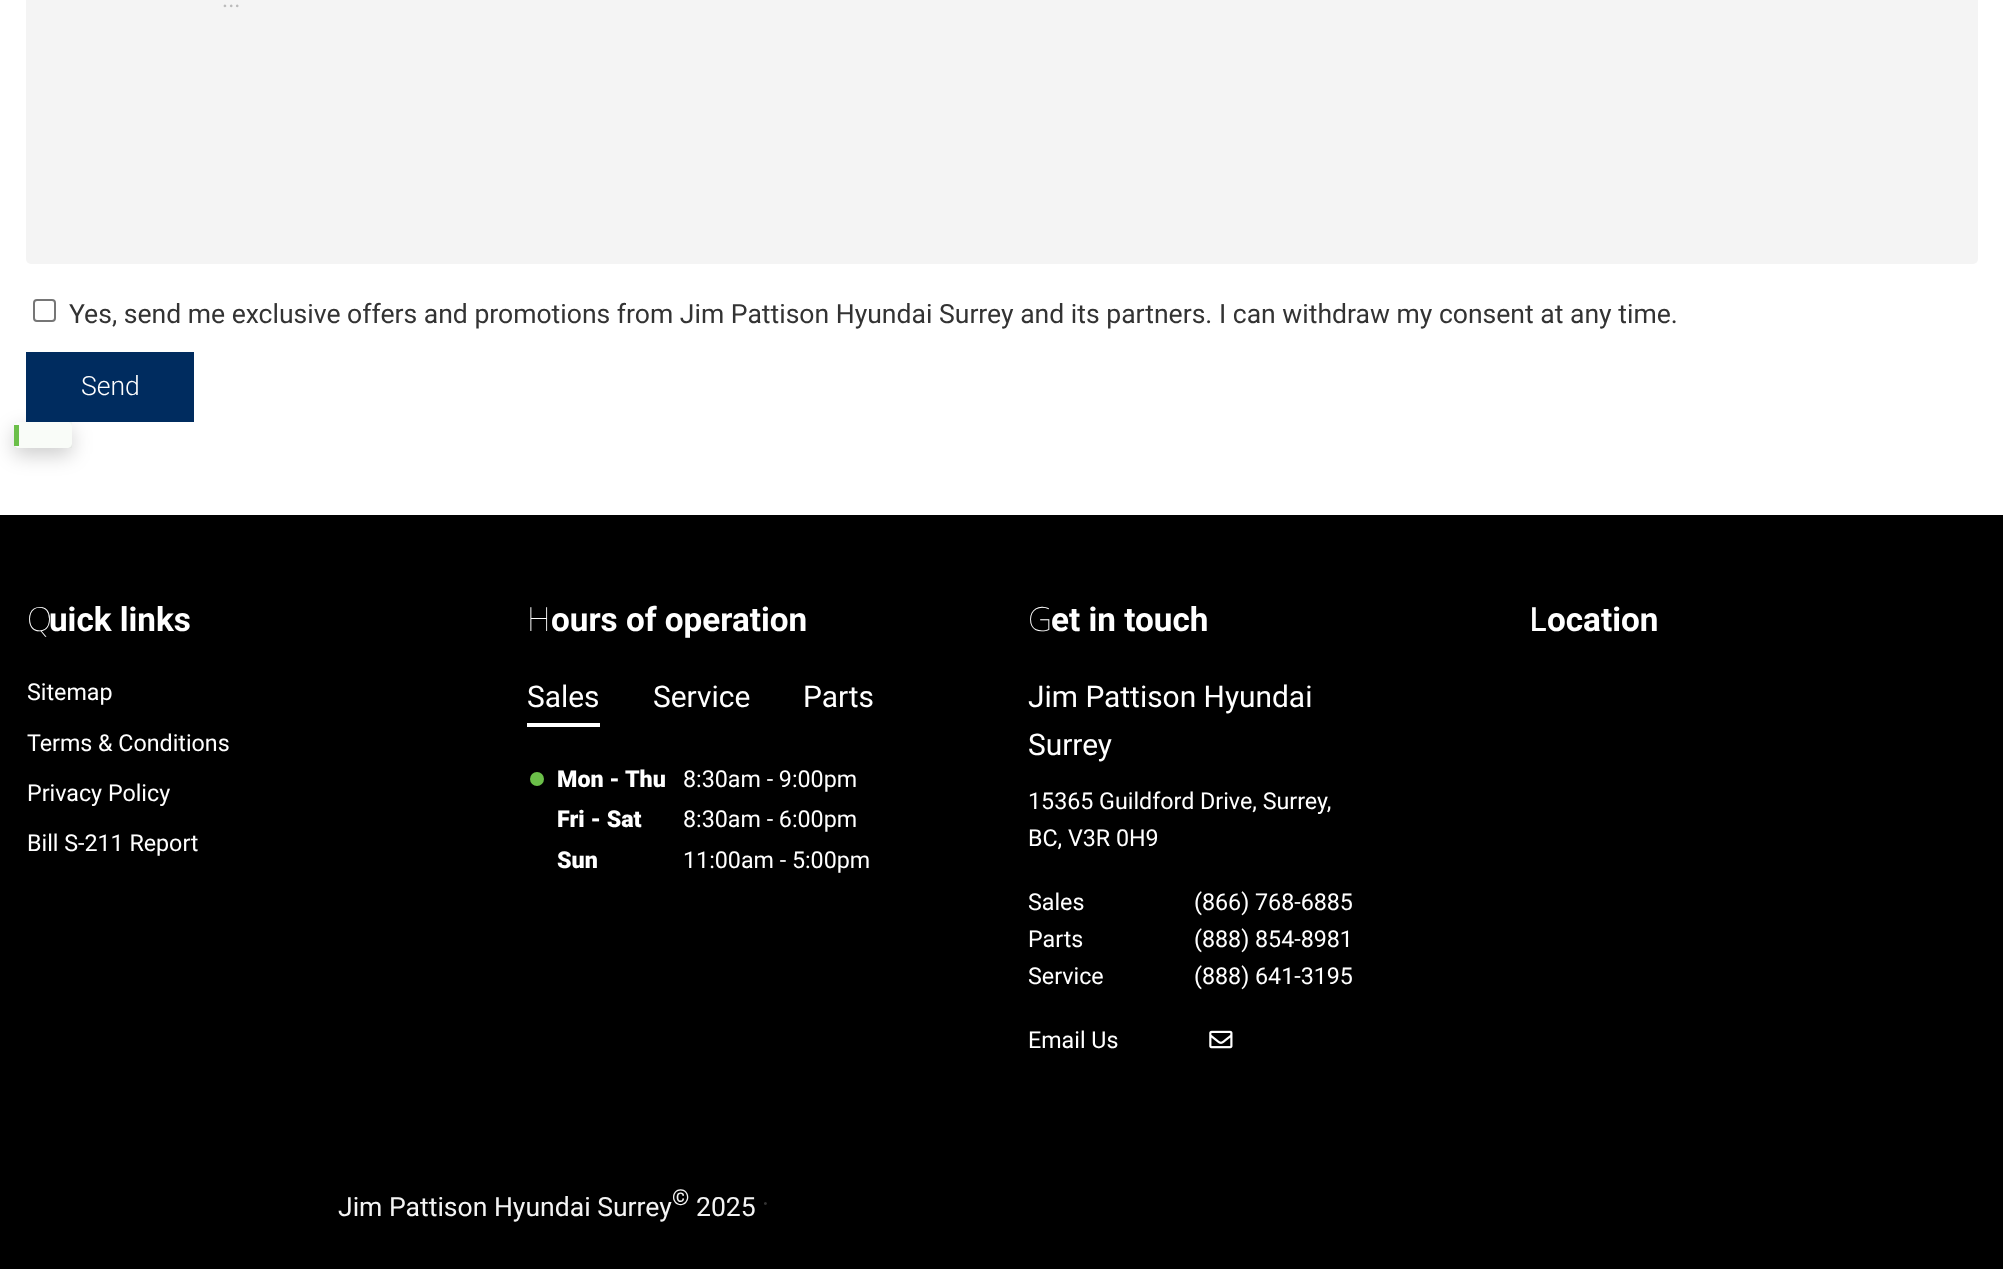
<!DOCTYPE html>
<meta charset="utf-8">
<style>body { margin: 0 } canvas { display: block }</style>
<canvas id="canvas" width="2003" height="1269"></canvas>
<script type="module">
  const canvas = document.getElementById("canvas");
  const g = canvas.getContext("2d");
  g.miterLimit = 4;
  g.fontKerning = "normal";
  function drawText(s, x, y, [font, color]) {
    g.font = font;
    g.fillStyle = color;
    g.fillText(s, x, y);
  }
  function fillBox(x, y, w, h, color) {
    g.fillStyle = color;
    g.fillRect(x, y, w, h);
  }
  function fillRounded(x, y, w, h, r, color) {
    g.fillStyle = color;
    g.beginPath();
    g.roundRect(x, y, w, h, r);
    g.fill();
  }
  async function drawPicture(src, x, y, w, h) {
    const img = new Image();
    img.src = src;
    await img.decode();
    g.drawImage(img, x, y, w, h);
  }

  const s1 = ["23.25px Roboto", "#BBBBBB"];
  const s2 = ["26.55px Roboto", "#333333"];
  const s3 = ["300 26.55px Roboto", "#FFFFFF"];
  const s4 = ["100 33.25px Noto Sans", "#FFFFFF"];
  const s5 = ["bold 33.25px Roboto", "#FFFFFF"];
  const s6 = ["23.25px Roboto", "#FFFFFF"];
  const s7 = ["29.9px Roboto", "#FFFFFF"];
  const s8 = ["900 23.25px Roboto", "#FFFFFF"];
  const s9 = ["500 33.25px Noto Sans", "#FFFFFF"];
  const s10 = ["26.55px Roboto", "#F4F4F4"];
  const s11 = ["22px Roboto", "#F4F4F4"];

  fillBox(0, 0, 2003, 1269, "#FFFFFF");
  fillRounded(26, -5, 1952, 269, 5, "#F4F4F4");
  drawText("...", 222, 7, s1);
  g.beginPath();
  g.roundRect(34, 300, 21, 21, 3);
  g.strokeStyle = "#767676";
  g.lineWidth = 2;
  g.stroke();
  drawText("Yes, send me exclusive offers and promotions from Jim Pattison Hyundai Surrey and its partners. I can withdraw my consent at any time.", 69, 323, s2);
  g.save();
  g.beginPath();
  g.moveTo(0, 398);
  g.lineTo(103, 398);
  g.lineTo(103, 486);
  g.lineTo(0, 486);
  g.closePath();
  g.moveTo(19, 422);
  g.lineTo(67, 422);
  g.bezierCurveTo(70, 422, 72, 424, 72, 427);
  g.lineTo(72, 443);
  g.bezierCurveTo(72, 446, 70, 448, 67, 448);
  g.lineTo(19, 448);
  g.bezierCurveTo(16, 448, 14, 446, 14, 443);
  g.lineTo(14, 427);
  g.bezierCurveTo(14, 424, 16, 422, 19, 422);
  g.closePath();
  g.clip("evenodd");
  g.fillStyle = "rgba(0, 0, 0, 0.2)";
  g.filter = "blur(10px)";
  g.beginPath();
  g.roundRect(14, 429, 58, 26, 5);
  g.fill();
  g.filter = "none";
  g.restore();
  fillBox(26, 352, 168, 70, "#002C5F");
  drawText("Send", 81, 395, s3);
  fillBox(15, 422, 57, 26, "rgba(107, 191, 73, 0.04)");
  fillBox(14, 425, 5, 21, "#6BBF49");
  fillBox(0, 515, 2003, 754, "#000000");
  drawText("Q", 27, 631, s4);
  drawText("uick links", 49, 631, s5);
  drawText("Sitemap", 27, 700, s6);
  drawText("Terms & Conditions", 27, 751, s6);
  drawText("Privacy Policy", 27, 801, s6);
  drawText("Bill S-211 Report", 27, 851, s6);
  drawText("H", 527, 631, s4);
  drawText("ours of operation", 551, 631, s5);
  fillBox(527, 723, 73, 4, "#FFFFFF");
  drawText("Sales", 527, 707, s7);
  drawText("Service", 653, 707, s7);
  drawText("Parts", 803, 707, s7);
  g.fillStyle = "#6BBF49";
  g.beginPath();
  g.arc(537, 779, 7, 0, Math.PI * 2);
  g.fill();
  drawText("Mon - Thu", 557, 787, s8);
  drawText("8:30am - 9:00pm", 683, 787, s6);
  drawText("Fri - Sat", 557, 827, s8);
  drawText("8:30am - 6:00pm", 683, 827, s6);
  drawText("Sun", 557, 868, s8);
  drawText("11:00am - 5:00pm", 683, 868, s6);
  drawText("G", 1028, 631, s4);
  drawText("et in touch", 1051, 631, s5);
  drawText("Jim Pattison Hyundai", 1028, 707, s7);
  drawText("Surrey", 1028, 755, s7);
  drawText("15365 Guildford Drive, Surrey,", 1028, 809, s6);
  drawText("BC, V3R 0H9", 1028, 846, s6);
  drawText("Sales", 1028, 910, s6);
  drawText("(866) 768-6885", 1194, 910, s6);
  drawText("Parts", 1028, 947, s6);
  drawText("(888) 854-8981", 1194, 947, s6);
  drawText("Service", 1028, 984, s6);
  drawText("(888) 641-3195", 1194, 984, s6);
  drawText("Email Us", 1028, 1048, s6);
  await drawPicture("pic1.png", 1209, 1030, 24, 19);
  drawText("L", 1529, 631, s9);
  drawText("ocation", 1547, 631, s5);
  drawText("Jim Pattison Hyundai Surrey", 338, 1216, s10);
  drawText("©", 672, 1205, s11);
  drawText("2025", 696, 1216, s10);
  drawText("·", 762, 1213, s2);
</script>
